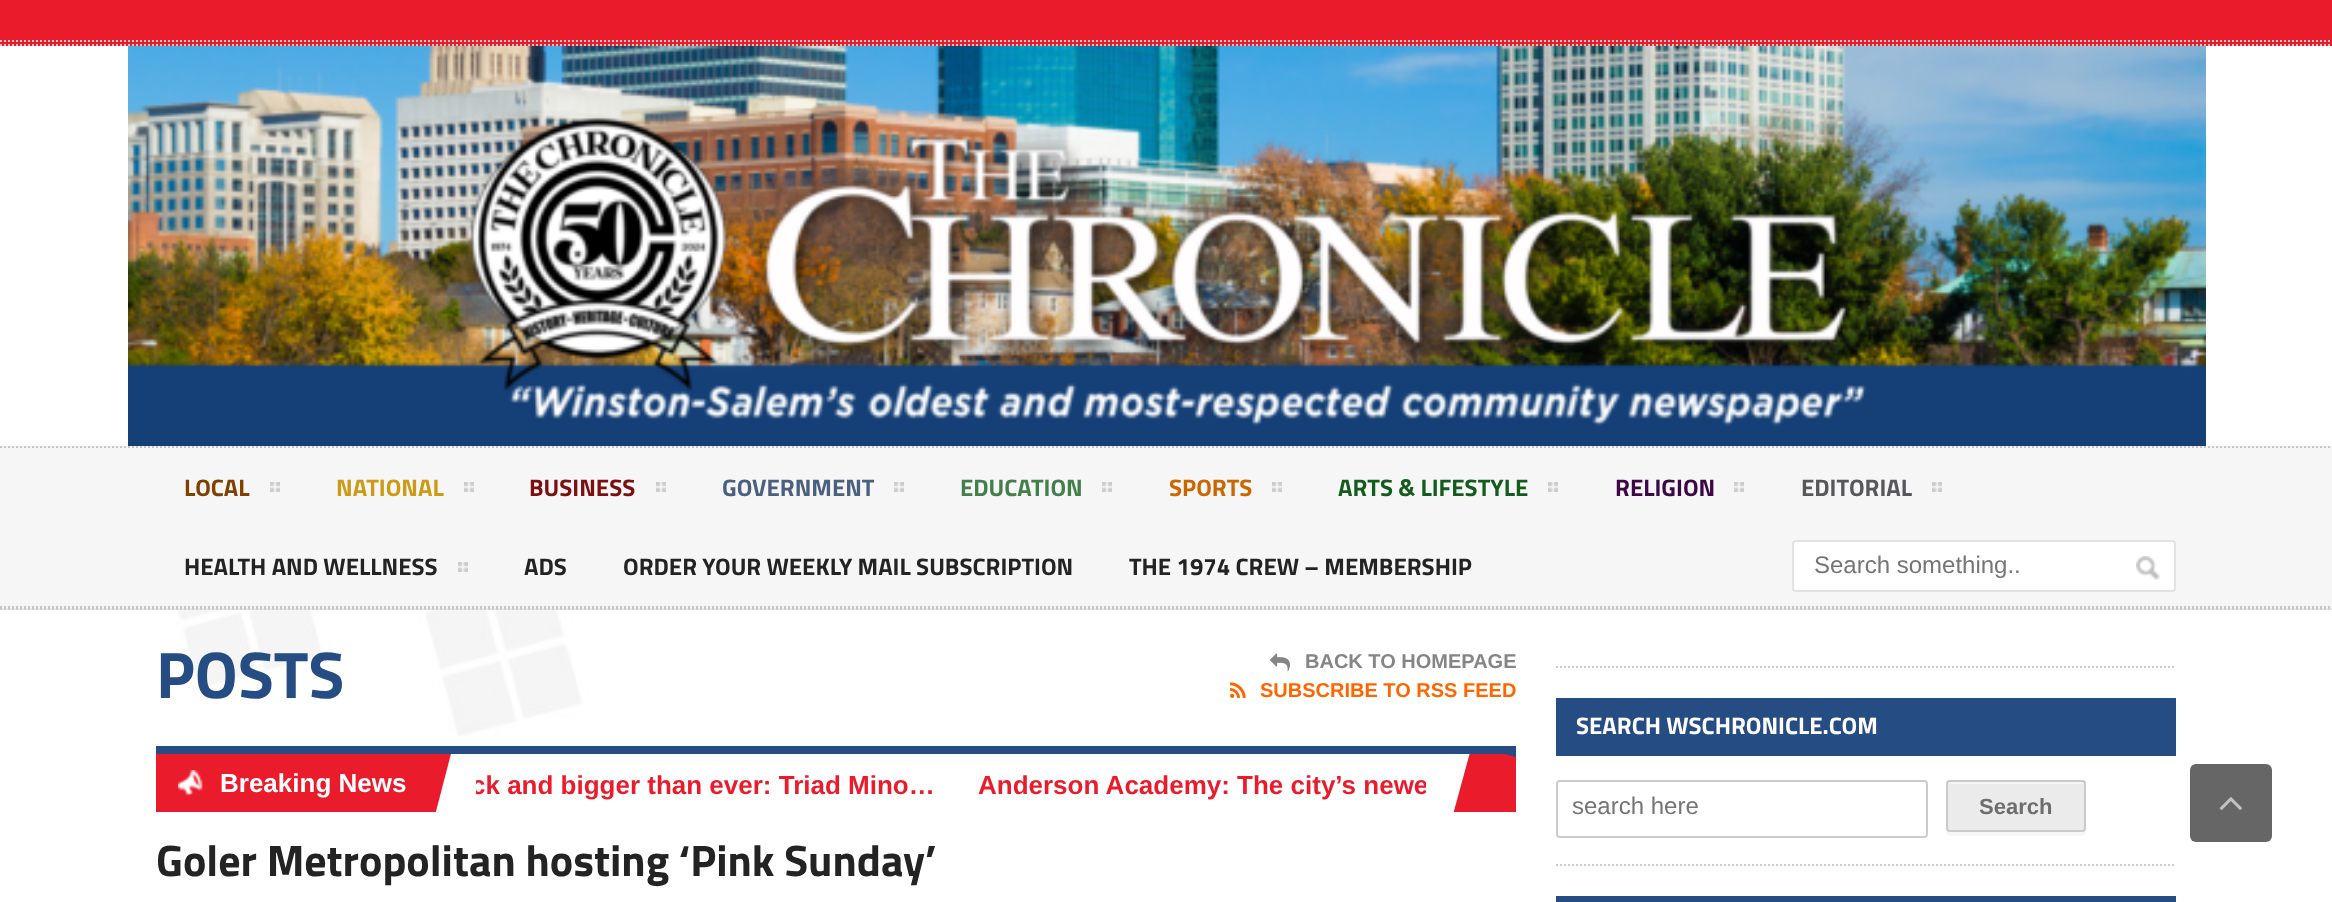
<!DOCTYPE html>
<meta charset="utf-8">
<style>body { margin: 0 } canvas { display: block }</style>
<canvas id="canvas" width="2332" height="902"></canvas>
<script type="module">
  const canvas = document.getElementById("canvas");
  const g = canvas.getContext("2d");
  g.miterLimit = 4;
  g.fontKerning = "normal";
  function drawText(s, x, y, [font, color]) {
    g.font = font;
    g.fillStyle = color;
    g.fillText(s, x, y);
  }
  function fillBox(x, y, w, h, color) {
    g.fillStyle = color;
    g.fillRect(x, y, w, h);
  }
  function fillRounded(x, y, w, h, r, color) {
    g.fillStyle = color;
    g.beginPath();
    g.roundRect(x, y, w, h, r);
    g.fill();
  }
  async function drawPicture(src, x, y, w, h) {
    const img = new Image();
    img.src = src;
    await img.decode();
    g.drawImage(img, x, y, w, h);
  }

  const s1 = ["bold 24px Titillium Web", "#7F4000"];
  const s2 = ["bold 24px Titillium Web", "#CC9A14"];
  const s3 = ["bold 24px Titillium Web", "#7E0F10"];
  const s4 = ["bold 24px Titillium Web", "#4B607F"];
  const s5 = ["bold 24px Titillium Web", "#427F4A"];
  const s6 = ["bold 24px Titillium Web", "#CC6600"];
  const s7 = ["bold 24px Titillium Web", "#145C1D"];
  const s8 = ["bold 24px Titillium Web", "#3D0747"];
  const s9 = ["bold 24px Titillium Web", "#58575C"];
  const s10 = ["bold 24px Titillium Web", "#232323"];
  const s11 = ["24px Liberation Sans", "#757575"];
  const s12 = ["bold 66px Titillium Web", "#264C84"];
  const s13 = ["bold 20px Liberation Sans", "#858585"];
  const s14 = ["bold 20px Liberation Sans", "#FF6600"];
  const s15 = ["bold 26px Liberation Sans", "#FFFFFF"];
  const s16 = ["bold 26px Liberation Sans", "#EA1C2C"];
  const s17 = ["bold 44px Titillium Web", "#232323"];
  const s18 = ["bold 24px Titillium Web", "#FFFFFF"];
  const s19 = ["bold 22px Liberation Sans", "#6E6E6E"];

  fillBox(0, 0, 2332, 902, "#FFFFFF");
  await drawPicture("pic1.png", 0, 610, 2332, 126);
  fillBox(0, 0, 2332, 46, "#EA1C2C");
  g.beginPath();
  g.moveTo(0, 41);
  g.lineTo(2332, 41);
  g.strokeStyle = "#CCCCCC";
  g.lineWidth = 2;
  g.setLineDash([2, 2]);
  g.stroke();
  g.beginPath();
  g.moveTo(0, 45);
  g.lineTo(2332, 45);
  g.stroke();
  await drawPicture("pic2.png", 128, 46, 2078, 400);
  fillBox(0, 446, 2332, 162, "#F6F6F6");
  g.beginPath();
  g.moveTo(0, 447);
  g.lineTo(2332, 447);
  g.strokeStyle = "#C5C5C5";
  g.stroke();
  g.beginPath();
  g.moveTo(0, 607);
  g.lineTo(2332, 607);
  g.stroke();
  drawText("LOCAL", 184, 496, s1);
  fillBox(270, 482, 10, 10, "#CCCCCC");
  await drawPicture("pic3.png", 270, 482, 10, 10);
  drawText("NATIONAL", 336, 496, s2);
  fillBox(464, 482, 10, 10, "#CCCCCC");
  await drawPicture("pic3.png", 464, 482, 10, 10);
  drawText("BUSINESS", 529, 496, s3);
  fillBox(656, 482, 10, 10, "#CCCCCC");
  await drawPicture("pic3.png", 656, 482, 10, 10);
  drawText("GOVERNMENT", 722, 496, s4);
  fillBox(894, 482, 10, 10, "#CCCCCC");
  await drawPicture("pic3.png", 894, 482, 10, 10);
  drawText("EDUCATION", 960, 496, s5);
  fillBox(1102, 482, 10, 10, "#CCCCCC");
  await drawPicture("pic3.png", 1102, 482, 10, 10);
  drawText("SPORTS", 1169, 496, s6);
  fillBox(1272, 482, 10, 10, "#CCCCCC");
  await drawPicture("pic3.png", 1272, 482, 10, 10);
  drawText("ARTS & LIFESTYLE", 1338, 496, s7);
  fillBox(1548, 482, 10, 10, "#CCCCCC");
  await drawPicture("pic3.png", 1548, 482, 10, 10);
  drawText("RELIGION", 1615, 496, s8);
  fillBox(1734, 482, 10, 10, "#CCCCCC");
  await drawPicture("pic3.png", 1734, 482, 10, 10);
  drawText("EDITORIAL", 1801, 496, s9);
  fillBox(1932, 482, 10, 10, "#CCCCCC");
  await drawPicture("pic3.png", 1932, 482, 10, 10);
  drawText("HEALTH AND WELLNESS", 184, 575, s10);
  fillBox(458, 562, 10, 10, "#CCCCCC");
  await drawPicture("pic3.png", 458, 562, 10, 10);
  drawText("ADS", 524, 575, s10);
  drawText("ORDER YOUR WEEKLY MAIL SUBSCRIPTION", 623, 575, s10);
  drawText("THE 1974 CREW – MEMBERSHIP", 1129, 575, s10);
  g.fillStyle = "#FFFFFF";
  g.beginPath();
  g.roundRect(1793, 541, 382, 50, 3);
  g.fill();
  g.strokeStyle = "#E2E2E2";
  g.setLineDash([]);
  g.stroke();
  drawText("Search something..", 1814, 573, s11);
  await drawPicture("pic4.png", 2136, 556, 24, 24);
  fillBox(0, 608, 2332, 2, "#E8E8E8");
  g.beginPath();
  g.moveTo(0, 609);
  g.lineTo(2332, 609);
  g.strokeStyle = "#CCCCCC";
  g.setLineDash([2, 2]);
  g.stroke();
  fillBox(156, 746, 1360, 8, "#264C84");
  drawText("POSTS", 156, 698, s12);
  await drawPicture("pic5.png", 1270, 653, 20, 19);
  drawText("BACK TO HOMEPAGE", 1305, 668, s13);
  await drawPicture("pic6.png", 1230, 682, 16, 16);
  drawText("SUBSCRIBE TO RSS FEED", 1260, 697, s14);
  fillBox(156, 754, 236, 58, "#EA1C2C");
  await drawPicture("pic7.png", 178, 770, 25, 26);
  g.save();
  g.beginPath();
  g.rect(156, 754, 1360, 58);
  g.clip();
  g.beginPath();
  g.moveTo(376, 725);
  g.lineTo(453, 746);
  g.lineTo(433, 823);
  g.lineTo(355, 802);
  g.closePath();
  g.fill();
  g.restore();
  drawText("Breaking News", 220, 792, s15);
  g.save();
  g.beginPath();
  g.rect(476, 766, 462, 40);
  g.clip();
  drawText("ck and bigger than ever: Triad Mino…", 471, 794, s16);
  g.restore();
  g.save();
  g.beginPath();
  g.rect(978, 766, 448, 40);
  g.clip();
  drawText("Anderson Academy: The city’s newe", 978, 794, s16);
  g.restore();
  fillBox(1505, 754, 11, 3, "#264C84");
  g.save();
  g.beginPath();
  g.rect(156, 754, 1360, 58);
  g.clip();
  g.fillStyle = "#EA1C2C";
  g.beginPath();
  g.moveTo(1472, 745);
  g.lineTo(1549, 766);
  g.lineTo(1528, 843);
  g.lineTo(1451, 822);
  g.closePath();
  g.fill();
  g.restore();
  drawText("Goler Metropolitan hosting ‘Pink Sunday’", 156, 876, s17);
  g.beginPath();
  g.moveTo(1556, 667);
  g.lineTo(2176, 667);
  g.stroke();
  g.beginPath();
  g.moveTo(1556, 865);
  g.lineTo(2176, 865);
  g.stroke();
  fillBox(1556, 698, 620, 58, "#264C84");
  drawText("SEARCH WSCHRONICLE.COM", 1576, 734, s18);
  g.beginPath();
  g.roundRect(1557, 781, 370, 56, 3);
  g.setLineDash([]);
  g.stroke();
  drawText("search here", 1572, 814, s11);
  g.fillStyle = "#F7F7F7";
  g.beginPath();
  g.moveTo(1946, 828);
  g.lineTo(1946, 832);
  g.bezierCurveTo(1946, 834, 1948, 836, 1950, 836);
  g.lineTo(2082, 836);
  g.bezierCurveTo(2084, 836, 2086, 834, 2086, 832);
  g.lineTo(2086, 828);
  g.bezierCurveTo(2086, 830, 2084, 832, 2082, 832);
  g.lineTo(1950, 832);
  g.bezierCurveTo(1948, 832, 1946, 830, 1946, 828);
  g.closePath();
  g.fill();
  fillRounded(1946, 780, 140, 52, 4, "#EBEBEB");
  g.fillStyle = "#F5F5F5";
  g.beginPath();
  g.moveTo(1950, 784);
  g.lineTo(2082, 784);
  g.bezierCurveTo(2083, 784, 2084, 785, 2084, 786);
  g.lineTo(2084, 784);
  g.bezierCurveTo(2084, 783, 2083, 782, 2082, 782);
  g.lineTo(1950, 782);
  g.bezierCurveTo(1949, 782, 1948, 783, 1948, 784);
  g.lineTo(1948, 786);
  g.bezierCurveTo(1948, 785, 1949, 784, 1950, 784);
  g.closePath();
  g.fill();
  g.beginPath();
  g.roundRect(1947, 781, 138, 50, 3);
  g.strokeStyle = "#CACACA";
  g.stroke();
  drawText("Search", 1979, 814, s19);
  fillBox(1556, 896, 620, 6, "#264C84");
  fillRounded(2190, 764, 82, 78, 6, "#666666");
  await drawPicture("pic8.png", 2219, 797, 23, 13);
</script>
